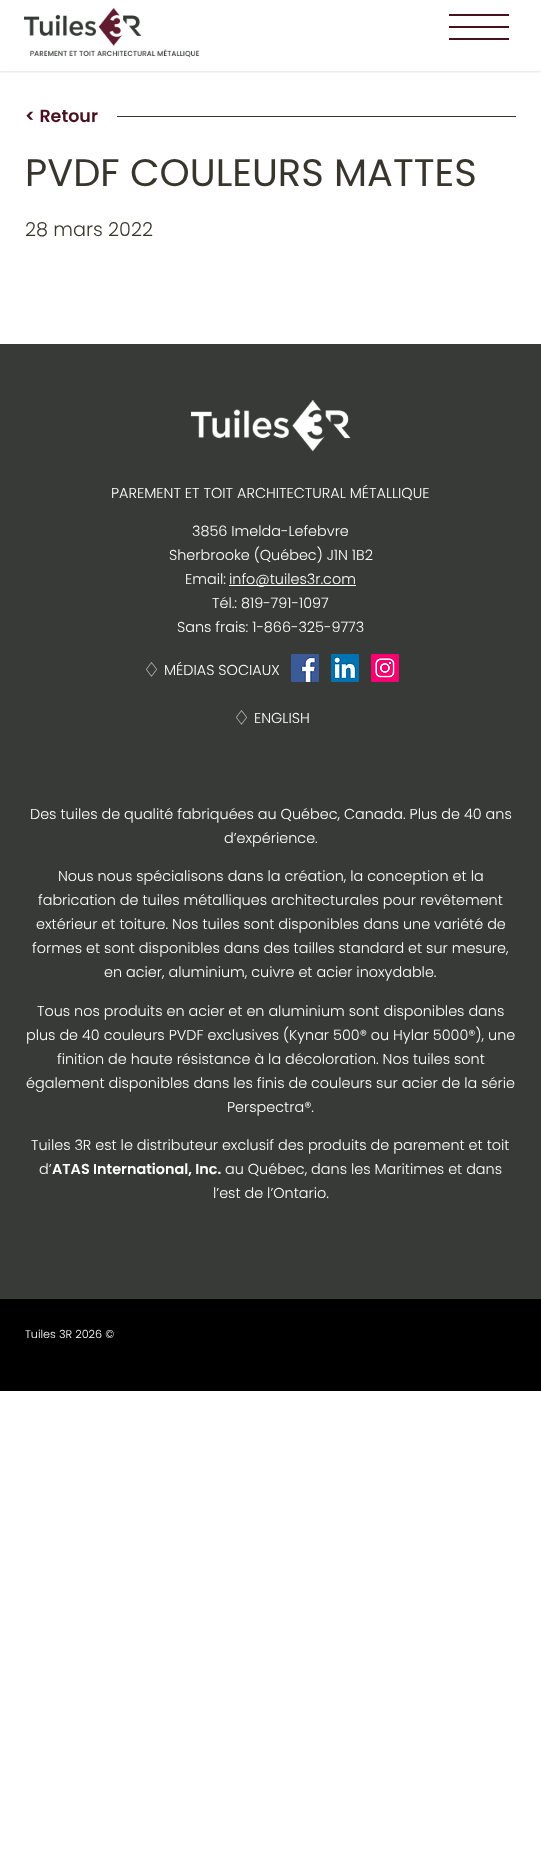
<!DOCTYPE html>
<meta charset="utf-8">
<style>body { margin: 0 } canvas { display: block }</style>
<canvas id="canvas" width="541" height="1868"></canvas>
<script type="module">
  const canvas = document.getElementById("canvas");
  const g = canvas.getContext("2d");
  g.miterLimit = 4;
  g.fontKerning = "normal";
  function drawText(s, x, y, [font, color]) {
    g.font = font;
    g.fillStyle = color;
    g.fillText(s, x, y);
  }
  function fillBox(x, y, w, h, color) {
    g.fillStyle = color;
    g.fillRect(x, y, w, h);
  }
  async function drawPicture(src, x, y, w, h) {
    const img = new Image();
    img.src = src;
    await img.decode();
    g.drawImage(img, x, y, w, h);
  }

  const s1 = ["600 17.5px Poppins", "#48111F"];
  const s2 = ["38.4px Poppins", "#38362C"];
  const s3 = ["300 19.25px Poppins", "#38362C"];
  const s4 = ["300 14.4px Poppins", "#FFFFFF"];
  const s5 = ["600 14.4px Poppins", "#FFFFFF"];
  const s6 = ["300 11.25px Poppins", "#FFFFFF"];

  fillBox(0, 0, 541, 1868, "#FFFFFF");
  g.save();
  g.beginPath();
  g.rect(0, 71, 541, 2);
  g.clip();
  g.fillStyle = "rgba(0, 0, 0, 0.1)";
  g.filter = "blur(1px)";
  g.beginPath();
  g.rect(0, 1, 541, 71);
  g.fill();
  g.filter = "none";
  g.restore();
  await drawPicture("pic1.png", 24, 8, 176, 50);
  fillBox(449, 14, 60, 2, "#48111F");
  fillBox(449, 26, 60, 2, "#48111F");
  fillBox(449, 38, 60, 2, "#48111F");
  drawText("< Retour", 25, 122, s1);
  fillBox(117, 116, 399, 1, "#38362C");
  drawText("PVDF COULEURS MATTES", 25, 186, s2);
  drawText("28 mars 2022", 25, 236, s3);
  fillBox(0, 344, 541, 955, "#373A36");
  await drawPicture("pic2.png", 191, 400, 160, 52);
  drawText("PAREMENT ET TOIT ARCHITECTURAL MÉTALLIQUE", 111, 498, s4);
  drawText("3856 Imelda-Lefebvre", 192, 536, s4);
  drawText("Sherbrooke (Québec) J1N 1B2", 169, 560, s4);
  drawText("Email:", 185, 584, s4);
  fillBox(229, 585, 127, 1, "#FFFFFF");
  drawText("info@tuiles3r.com", 229, 584, s4);
  drawText("Tél.: 819-791-1097", 212, 608, s4);
  drawText("Sans frais: 1-866-325-9773", 177, 632, s4);
  await drawPicture("pic3.png", 146, 662, 11, 15);
  drawText("MÉDIAS SOCIAUX", 164, 675, s4);
  await drawPicture("pic4.png", 291, 654, 28, 28);
  await drawPicture("pic5.png", 331, 654, 28, 28);
  await drawPicture("pic6.png", 371, 654, 28, 28);
  await drawPicture("pic3.png", 236, 710, 11, 15);
  drawText("ENGLISH", 254, 723, s4);
  drawText("Des tuiles de qualité fabriquées au Québec, Canada. Plus de 40 ans", 30, 819, s4);
  drawText("d’expérience.", 224, 843, s4);
  drawText("Nous nous spécialisons dans la création, la conception et la", 58, 881, s4);
  drawText("fabrication de tuiles métalliques architecturales pour revêtement", 38, 905, s4);
  drawText("extérieur et toiture. Nos tuiles sont disponibles dans une variété de", 36, 929, s4);
  drawText("formes et sont disponibles dans des tailles standard et sur mesure,", 32, 953, s4);
  drawText("en acier, aluminium, cuivre et acier inoxydable.", 104, 977, s4);
  drawText("Tous nos produits en acier et en aluminium sont disponibles dans", 37, 1016, s4);
  drawText("plus de 40 couleurs PVDF exclusives (Kynar 500® ou Hylar 5000®), une", 26, 1040, s4);
  drawText("finition de haute résistance à la décoloration. Nos tuiles sont", 57, 1064, s4);
  drawText("également disponibles dans les finis de couleurs sur acier de la série", 26, 1088, s4);
  drawText("Perspectra®.", 227, 1112, s4);
  drawText("Tuiles 3R est le distributeur exclusif des produits de parement et toit", 31, 1150, s4);
  drawText("d’", 39, 1174, s4);
  drawText("ATAS International, Inc.", 52, 1174, s5);
  drawText("au Québec, dans les Maritimes et dans", 225, 1174, s4);
  drawText("l’est de l’Ontario.", 213, 1198, s4);
  fillBox(0, 1299, 541, 92, "#000000");
  drawText("Tuiles 3R 2026 ©", 25, 1338, s6);
</script>
